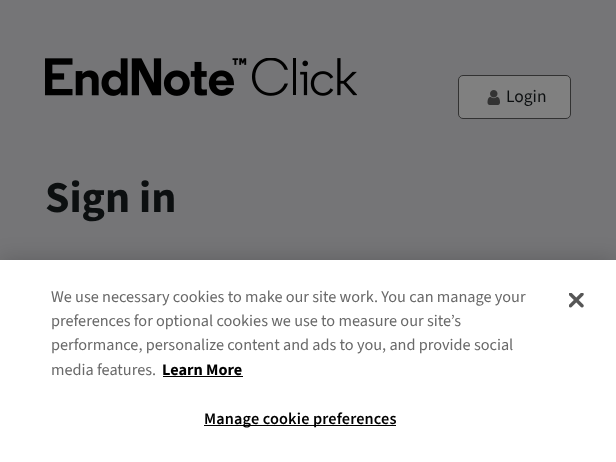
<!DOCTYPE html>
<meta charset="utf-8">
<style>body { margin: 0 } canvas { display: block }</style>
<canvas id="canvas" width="616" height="462"></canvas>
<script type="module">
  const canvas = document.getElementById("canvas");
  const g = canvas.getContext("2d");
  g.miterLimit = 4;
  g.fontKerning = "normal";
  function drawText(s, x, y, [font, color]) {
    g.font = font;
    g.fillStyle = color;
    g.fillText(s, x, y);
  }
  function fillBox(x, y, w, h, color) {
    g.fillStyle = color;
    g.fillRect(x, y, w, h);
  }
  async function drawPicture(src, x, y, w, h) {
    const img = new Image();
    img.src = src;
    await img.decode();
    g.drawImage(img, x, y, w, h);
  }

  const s1 = ["17.5px 'Source Sans 3'", "#0C0F10"];
  const s2 = ["bold 44px 'Source Sans 3'", "#0C0F10"];
  const s3 = ["16.25px 'Source Sans 3'", "#696969"];
  const s4 = ["bold 16.25px 'Source Sans 3'", "#000000"];
  const s5 = ["600 16.25px 'Source Sans 3'", "#000000"];

  fillBox(0, 0, 616, 462, "#757577");
  await drawPicture("pic1.png", 45, 58, 312, 38);
  g.fillStyle = "#808080";
  g.beginPath();
  g.roundRect(458.5, 75.5, 112, 43, 4.5);
  g.fill();
  g.strokeStyle = "#323232";
  g.stroke();
  await drawPicture("pic2.png", 487, 90, 13, 15);
  drawText("Login", 506, 102, s1);
  drawText("Sign in", 45, 212, s2);
  g.fillStyle = "rgba(0, 0, 0, 0.2)";
  g.filter = "blur(11px)";
  g.beginPath();
  g.rect(0, 260, 616, 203);
  g.fill();
  g.filter = "none";
  fillBox(0, 260, 616, 202, "#FFFFFF");
  drawText("We use necessary cookies to make our site work. You can manage your", 51, 302, s3);
  drawText("preferences for optional cookies we use to measure our site’s", 51, 326, s3);
  drawText("performance, personalize content and ads to you, and provide social", 51, 350, s3);
  drawText("media features.", 51, 375, s3);
  drawText("Learn More", 162, 375, s4);
  fillBox(163, 376, 80, 1, "#000000");
  fillBox(204, 425, 192, 1, "#000000");
  g.letterSpacing = "0.15px";
  drawText("Manage cookie preferences", 204, 424, s5);
  await drawPicture("pic3.png", 569, 293, 15, 15);
</script>
